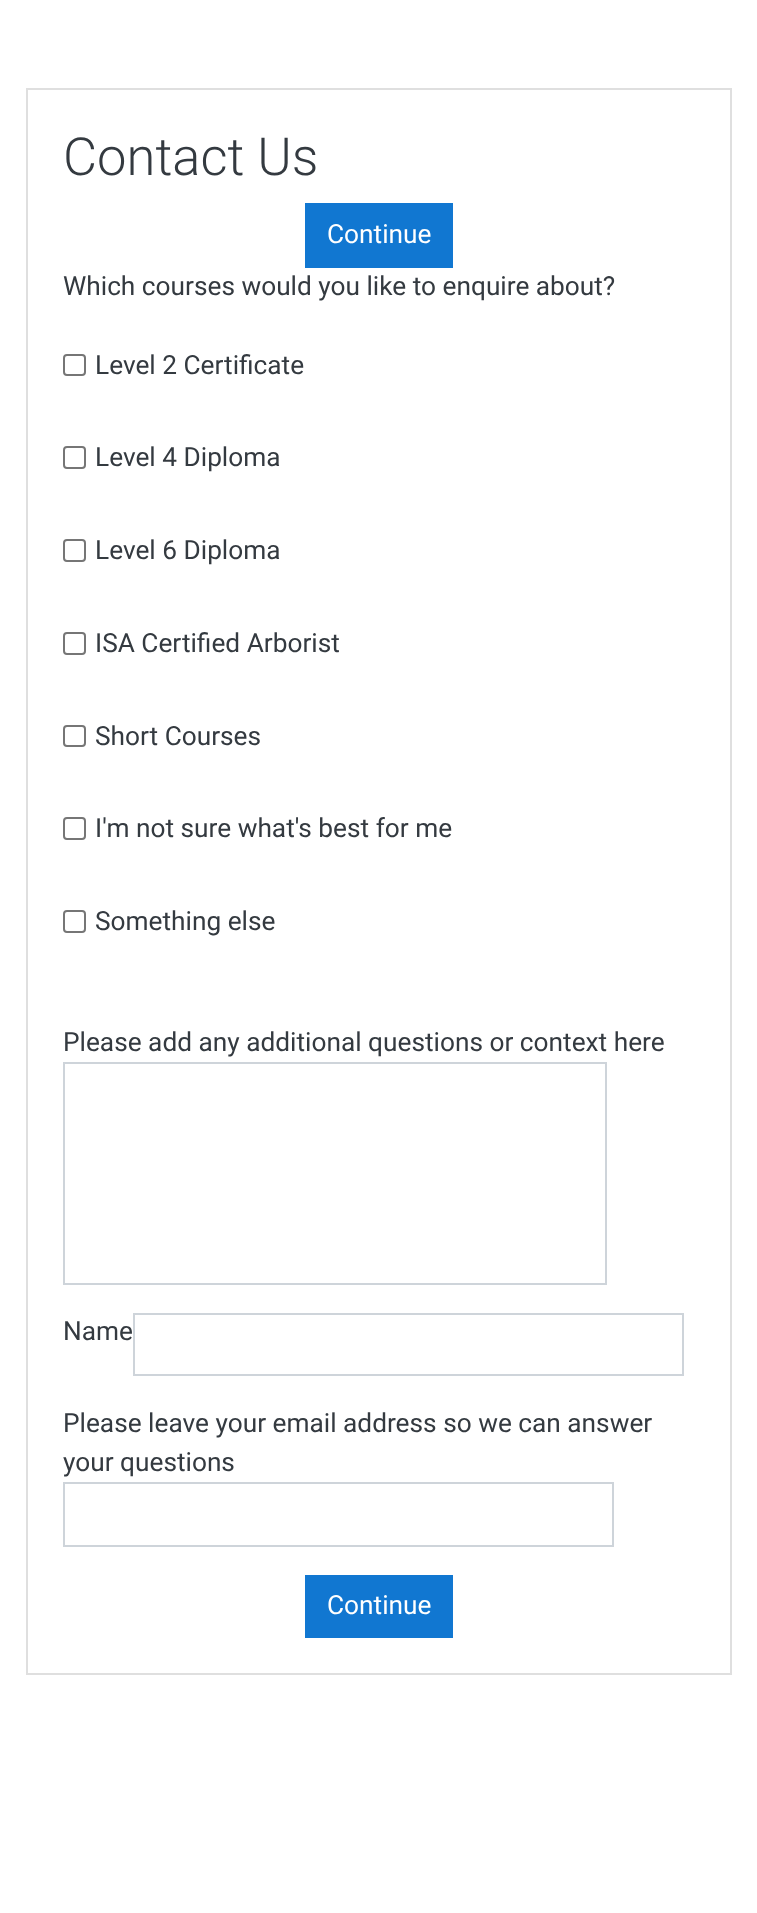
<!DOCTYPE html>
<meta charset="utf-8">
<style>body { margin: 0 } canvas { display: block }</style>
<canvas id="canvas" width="757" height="1913"></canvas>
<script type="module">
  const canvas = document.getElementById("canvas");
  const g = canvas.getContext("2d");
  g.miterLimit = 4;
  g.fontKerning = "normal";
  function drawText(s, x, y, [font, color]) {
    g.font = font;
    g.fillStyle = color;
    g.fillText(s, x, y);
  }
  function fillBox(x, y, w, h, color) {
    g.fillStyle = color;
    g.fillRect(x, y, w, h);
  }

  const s1 = ["300 52.5px Roboto", "#343A40"];
  const s2 = ["26.25px Roboto", "#FFFFFF"];
  const s3 = ["26.25px Roboto", "#343A40"];

  fillBox(0, 0, 757, 1913, "#FFFFFF");
  g.strokeStyle = "#DFDFDF";
  g.lineWidth = 2;
  g.strokeRect(27, 89, 704, 1585);
  drawText("Contact Us", 63, 175, s1);
  fillBox(305, 203, 148, 65, "#1177D1");
  drawText("Continue", 327, 243, s2);
  drawText("Which courses would you like to enquire about?", 63, 295, s3);
  g.beginPath();
  g.roundRect(64, 355, 21, 20, 3);
  g.strokeStyle = "#767676";
  g.stroke();
  drawText("Level 2 Certificate", 95, 374, s3);
  g.beginPath();
  g.roundRect(64, 447, 21, 21, 3);
  g.stroke();
  drawText("Level 4 Diploma", 95, 466, s3);
  g.beginPath();
  g.roundRect(64, 540, 21, 21, 3);
  g.stroke();
  drawText("Level 6 Diploma", 95, 559, s3);
  g.beginPath();
  g.roundRect(64, 633, 21, 21, 3);
  g.stroke();
  drawText("ISA Certified Arborist", 95, 652, s3);
  g.beginPath();
  g.roundRect(64, 726, 21, 20, 3);
  g.stroke();
  drawText("Short Courses", 95, 745, s3);
  g.beginPath();
  g.roundRect(64, 818, 21, 21, 3);
  g.stroke();
  drawText("I'm not sure what's best for me", 95, 837, s3);
  g.beginPath();
  g.roundRect(64, 911, 21, 21, 3);
  g.stroke();
  drawText("Something else", 95, 930, s3);
  drawText("Please add any additional questions or context here", 63, 1051, s3);
  g.strokeStyle = "#CED4DA";
  g.strokeRect(64, 1063, 542, 221);
  drawText("Name", 63, 1340, s3);
  g.strokeRect(134, 1314, 549, 61);
  drawText("Please leave your email address so we can answer", 63, 1432, s3);
  drawText("your questions", 63, 1471, s3);
  g.strokeRect(64, 1483, 549, 63);
  fillBox(305, 1575, 148, 63, "#1177D1");
  drawText("Continue", 327, 1614, s2);
</script>
